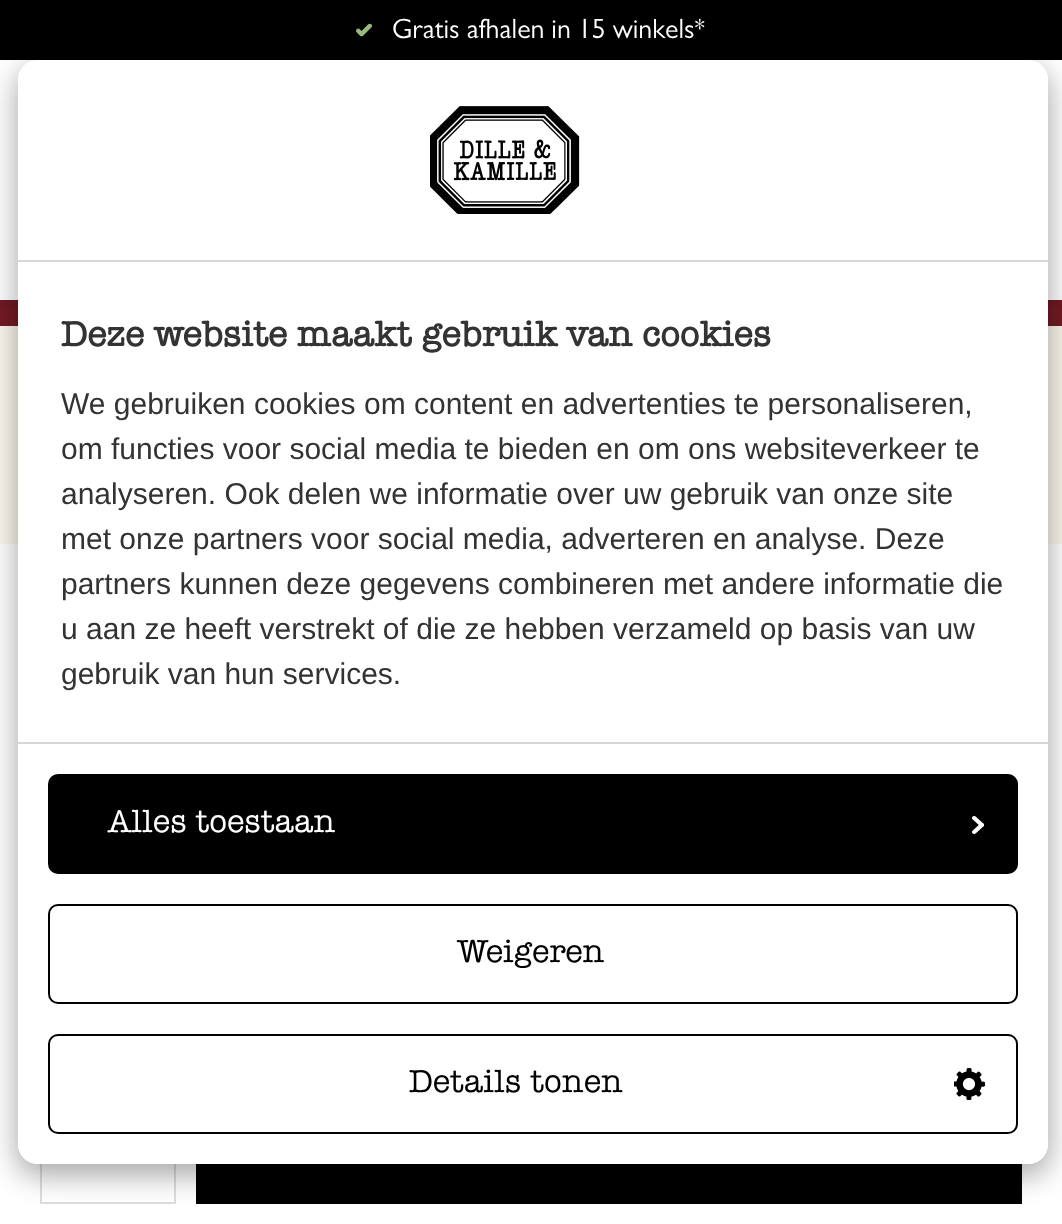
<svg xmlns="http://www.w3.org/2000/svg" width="1062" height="1224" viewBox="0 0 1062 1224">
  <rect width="100%" height="100%" fill="rgb(250,248,237)"/>
  <rect x="0" y="300" width="1062" height="26" fill="rgb(116,27,37)"/>
  <rect x="0" y="0" width="1062" height="300" fill="rgba(0,0,0,0.1)" filter="blur(5px)"/>
  <rect x="0" y="60" width="1062" height="240" fill="rgb(255,255,255)"/>
  <rect x="0" y="0" width="1062" height="60" fill="rgb(0,0,0)"/>
  <image x="356" y="23" width="16" height="14" href="pic1.png"/>
  <text x="392" y="38" font-family="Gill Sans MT" font-size="28" font-weight="300" fill="rgb(255,255,255)">Gratis afhalen in 15 winkels*</text>
  <rect x="0" y="544" width="1062" height="680" fill="rgb(255,255,255)"/>
  <rect x="41" y="1105" width="134" height="98" fill="none" stroke="rgb(221,221,221)" stroke-width="2"/>
  <rect x="196" y="1164" width="826" height="40" fill="rgb(0,0,0)"/>
  <rect x="18" y="70" width="1030" height="1104" rx="20" fill="rgba(0,0,0,0.19)" filter="blur(15px)"/>
  <rect x="18" y="70" width="1030" height="1104" rx="20" fill="rgba(0,0,0,0.2)" filter="blur(15px)"/>
  <rect x="18" y="60" width="1030" height="1104" rx="20" fill="rgb(255,255,255)"/>
  <path d="M38 60H1028C1039 60 1048 69 1048 80V262H18V80C18 69 27 60 38 60Z" fill="rgb(255,255,255)"/>
  <rect x="18" y="260" width="1030" height="2" fill="rgb(214,214,214)"/>
  <image x="430" y="106" width="150" height="108" href="pic2.png"/>
  <text x="61" y="346" font-family="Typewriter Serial" font-size="33" font-weight="bold" fill="rgb(51,51,51)">Deze website maakt gebruik van cookies</text>
  <g font-family="Liberation Sans" font-size="30" fill="rgb(51,51,51)">
    <text>
      <tspan x="61" y="414">We gebruiken cookies om content en advertenties te personaliseren,</tspan>
      <tspan x="61" y="459">om functies voor social media te bieden en om ons websiteverkeer te</tspan>
      <tspan x="61" y="504">analyseren. Ook delen we informatie over uw gebruik van onze site</tspan>
      <tspan x="61" y="549">met onze partners voor social media, adverteren en analyse. Deze</tspan>
      <tspan x="61" y="594">partners kunnen deze gegevens combineren met andere informatie die</tspan>
      <tspan x="61" y="639">u aan ze heeft verstrekt of die ze hebben verzameld op basis van uw</tspan>
      <tspan x="61" y="684">gebruik van hun services.</tspan>
    </text>
  </g>
  <path d="M18 742H1048V1144C1048 1155 1039 1164 1028 1164H38C27 1164 18 1155 18 1144Z" fill="rgb(255,255,255)"/>
  <rect x="18" y="742" width="1030" height="2" fill="rgb(214,214,214)"/>
  <rect x="49" y="775" width="968" height="98" rx="9" fill="rgb(0,0,0)" stroke="rgb(0,0,0)" stroke-width="2"/>
  <text x="108" y="832" font-family="Typewriter Serial" font-size="30" fill="rgb(255,255,255)">Alles toestaan</text>
  <image x="972" y="816" width="12" height="18" href="pic3.png"/>
  <rect x="49" y="905" width="968" height="98" rx="9" fill="none" stroke="rgb(0,0,0)" stroke-width="2"/>
  <text x="457" y="962" font-family="Typewriter Serial" font-size="30" fill="rgb(0,0,0)">Weigeren</text>
  <rect x="49" y="1035" width="968" height="98" rx="9" fill="none" stroke="rgb(0,0,0)" stroke-width="2"/>
  <text x="409" y="1092" font-family="Typewriter Serial" font-size="30" fill="rgb(0,0,0)">Details tonen</text>
  <image x="954" y="1068" width="31" height="32" href="pic4.png"/>
</svg>
